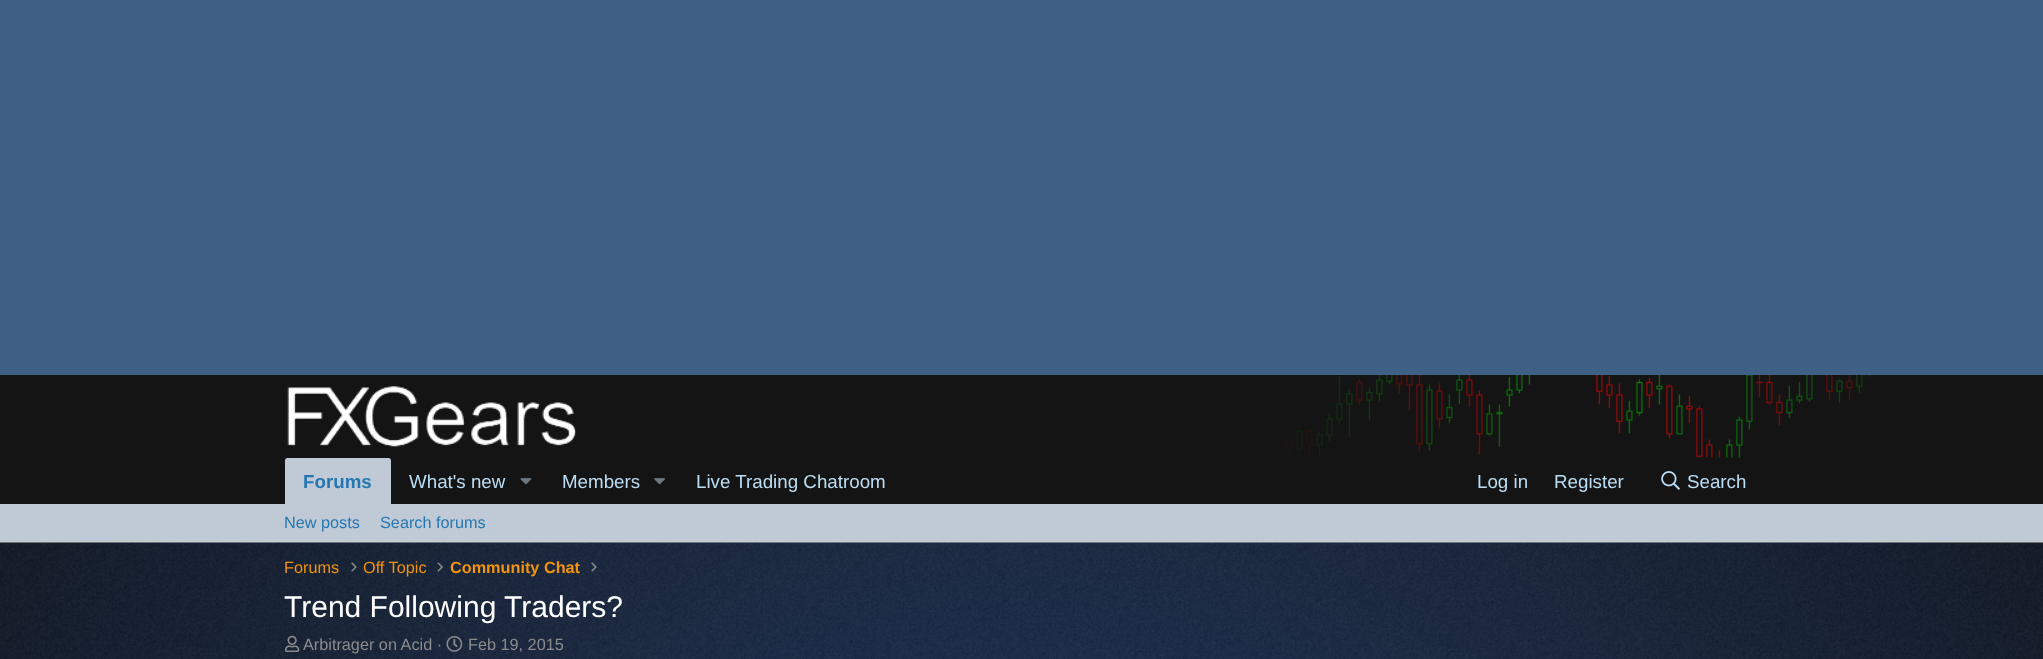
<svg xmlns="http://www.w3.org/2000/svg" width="2043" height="659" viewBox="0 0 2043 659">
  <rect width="100%" height="100%" fill="rgb(62,96,133)"/>
  <rect x="0" y="375" width="2043" height="129" fill="rgb(20,20,20)"/>
  <image x="1286" y="375" width="584" height="83" href="pic1.png"/>
  <image x="287" y="386" width="290" height="61" href="pic2.png"/>
  <path d="M287.5 458H388.5C390 458 391 459 391 460.5V504H285V460.5C285 459 286 458 287.5 458Z" fill="rgb(191,202,214)"/>
  <text x="303" y="488" font-family="Liberation Sans" font-size="18.75" font-weight="bold" fill="rgb(37,119,177)">Forums</text>
  <text x="409" y="488" font-family="Liberation Sans" font-size="18.75" fill="rgb(188,222,245)">What's new</text>
  <image x="520" y="478" width="12" height="7" href="pic3.png"/>
  <text x="562" y="488" font-family="Liberation Sans" font-size="18.75" fill="rgb(188,222,245)">Members</text>
  <image x="654" y="478" width="11" height="7" href="pic4.png"/>
  <g font-family="Liberation Sans" font-size="18.75" fill="rgb(188,222,245)">
    <text x="696" y="488">Live Trading Chatroom</text>
    <text x="1477" y="488">Log in</text>
    <text x="1554" y="488">Register</text>
  </g>
  <image x="1661" y="471" width="19" height="19" href="pic5.png"/>
  <text x="1687" y="488" font-family="Liberation Sans" font-size="18.75" fill="rgb(188,222,245)">Search</text>
  <rect x="0" y="504" width="2043" height="39" fill="rgb(191,202,214)"/>
  <rect x="0" y="541" width="2043" height="1" fill="rgb(203,203,203)"/>
  <g font-family="Liberation Sans" font-size="16.25" fill="rgb(37,119,177)">
    <text x="284" y="528">New posts</text>
    <text x="380" y="528">Search forums</text>
  </g>
  <image x="0" y="542" width="2043" height="117" href="pic6.png"/>
  <text x="284" y="573" font-family="Liberation Sans" font-size="16.25" fill="rgb(242,147,13)">Forums</text>
  <image x="351" y="562" width="6" height="10" href="pic7.png"/>
  <text x="363" y="573" font-family="Liberation Sans" font-size="16.25" fill="rgb(242,147,13)">Off Topic</text>
  <image x="437" y="562" width="6" height="10" href="pic8.png"/>
  <text x="450" y="573" font-family="Liberation Sans" font-size="16.25" font-weight="bold" fill="rgb(242,147,13)">Community Chat</text>
  <image x="591" y="562" width="6" height="10" href="pic9.png"/>
  <text x="284" y="617" font-family="Liberation Sans" font-size="30" fill="rgb(255,255,255)">Trend Following Traders?</text>
  <image x="285" y="635" width="15" height="17" href="pic10.png"/>
  <text x="303" y="650" font-family="Liberation Sans" font-size="16.25" fill="rgb(140,140,140)">Arbitrager on Acid ·</text>
  <image x="446" y="636" width="17" height="16" href="pic11.png"/>
  <text x="468" y="650" font-family="Liberation Sans" font-size="16.25" fill="rgb(140,140,140)">Feb 19, 2015</text>
</svg>
